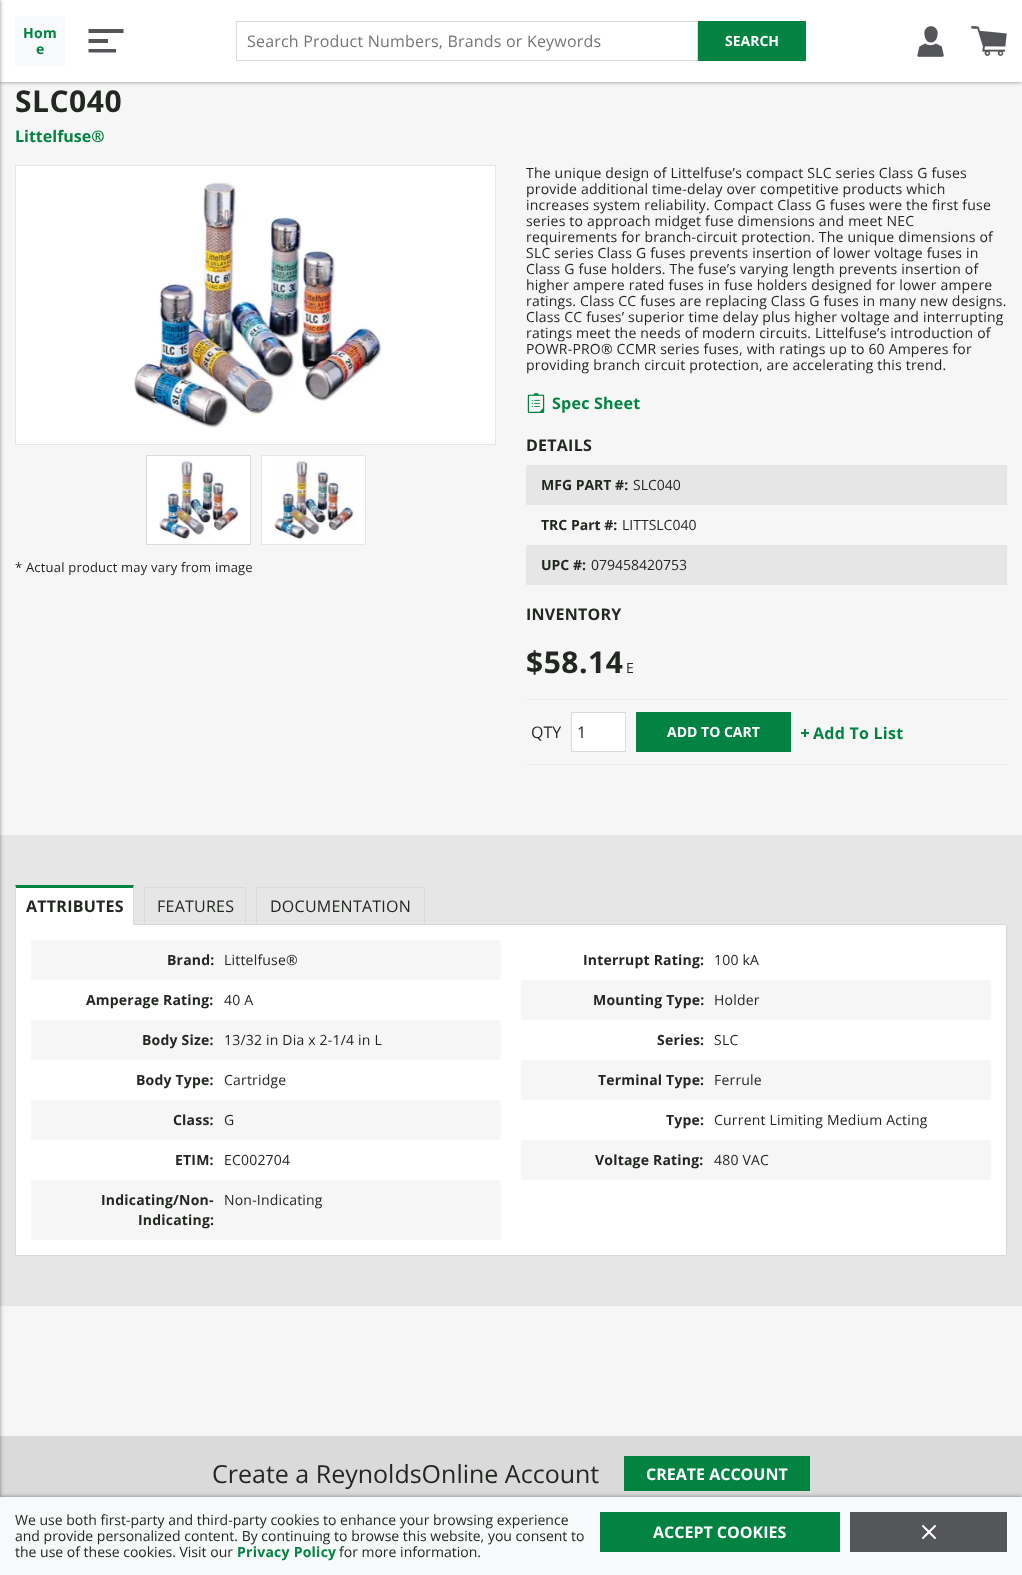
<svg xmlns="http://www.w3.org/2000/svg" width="1022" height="1575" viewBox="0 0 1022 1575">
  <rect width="100%" height="100%" fill="rgb(246,246,246)"/>
  <rect x="0" y="0" width="1022" height="82" fill="rgba(33,33,33,0.5)" filter="blur(2px)"/>
  <rect x="0" y="0" width="1022" height="82" fill="rgb(255,255,255)"/>
  <rect x="0" y="835" width="1022" height="471" fill="rgb(230,230,230)"/>
  <rect x="0" y="1436" width="1022" height="61" fill="rgb(218,218,218)"/>
  <rect x="-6" y="0" width="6" height="1575" fill="rgba(33,33,33,0.5)" filter="blur(2px)"/>
  <rect x="15" y="16" width="50" height="50" fill="rgb(248,249,250)"/>
  <g font-family="Open Sans" font-size="14" font-weight="bold" letter-spacing="0.25" fill="rgb(2,131,66)">
    <text x="23" y="38">Hom</text>
    <text x="36" y="54">e</text>
  </g>
  <path d="M116 49V52.5H88.5V49ZM108 39V43H88.5V39ZM123.5 29V33H88.5V29Z" fill="rgb(85,86,90)" fill-rule="evenodd"/>
  <rect x="236.5" y="21.5" width="461" height="39" fill="none" stroke="rgb(218,218,218)"/>
  <text x="247" y="47" font-family="Open Sans" font-size="16" letter-spacing="0.2" fill="rgb(117,117,117)">Search Product Numbers, Brands or Keywords</text>
  <rect x="698" y="21" width="108" height="40" fill="rgb(2,131,66)"/>
  <text x="725" y="46" font-family="Open Sans" font-size="14" font-weight="bold" fill="rgb(255,255,255)">SEARCH</text>
  <image x="917" y="26" width="27" height="31" href="pic1.png"/>
  <image x="971" y="26" width="36" height="30" href="pic2.png"/>
  <text x="15" y="112" font-family="Open Sans" font-size="30" font-weight="bold" letter-spacing="0.5" fill="rgb(34,39,33)">SLC040</text>
  <text x="15" y="142" font-family="Open Sans" font-size="16" font-weight="bold" fill="rgb(2,131,66)">Littelfuse®</text>
  <rect x="15.5" y="165.5" width="480" height="279" fill="rgb(255,255,255)" stroke="rgb(230,230,230)"/>
  <image x="133" y="182" width="249" height="246" href="pic3.png"/>
  <rect x="146.5" y="455.5" width="104" height="89" fill="rgb(255,255,255)" stroke="rgb(218,218,218)"/>
  <image x="159" y="461" width="80" height="80" href="pic4.png"/>
  <rect x="261.5" y="455.5" width="104" height="89" fill="rgb(255,255,255)" stroke="rgb(230,230,230)"/>
  <image x="274" y="456" width="80" height="85" href="pic5.png"/>
  <text x="15" y="572" font-family="Open Sans" font-size="13" letter-spacing="0.2" fill="rgb(34,39,33)">* Actual product may vary from image</text>
  <g font-family="Open Sans" font-size="14" letter-spacing="0.2" fill="rgb(34,39,33)">
    <text>
      <tspan x="526" y="178">The unique design of Littelfuse’s compact SLC series Class G fuses</tspan>
      <tspan x="526" y="194">provide additional time-delay over competitive products which</tspan>
      <tspan x="526" y="210">increases system reliability. Compact Class G fuses were the first fuse</tspan>
      <tspan x="526" y="226">series to approach midget fuse dimensions and meet NEC</tspan>
      <tspan x="526" y="242">requirements for branch-circuit protection. The unique dimensions of</tspan>
      <tspan x="526" y="258">SLC series Class G fuses prevents insertion of lower voltage fuses in</tspan>
      <tspan x="526" y="274">Class G fuse holders. The fuse’s varying length prevents insertion of</tspan>
      <tspan x="526" y="290">higher ampere rated fuses in fuse holders designed for lower ampere</tspan>
      <tspan x="526" y="306">ratings. Class CC fuses are replacing Class G fuses in many new designs.</tspan>
      <tspan x="526" y="322">Class CC fuses’ superior time delay plus higher voltage and interrupting</tspan>
      <tspan x="526" y="338">ratings meet the needs of modern circuits. Littelfuse’s introduction of</tspan>
      <tspan x="526" y="354">POWR-PRO® CCMR series fuses, with ratings up to 60 Amperes for</tspan>
      <tspan x="526" y="370">providing branch circuit protection, are accelerating this trend.</tspan>
    </text>
  </g>
  <image x="527" y="393" width="18" height="20" href="pic6.png"/>
  <text x="552" y="409" font-family="Open Sans" font-size="16" font-weight="bold" letter-spacing="0.25" fill="rgb(2,131,66)">Spec Sheet</text>
  <text x="526" y="451" font-family="Open Sans" font-size="16" font-weight="bold" letter-spacing="0.25" fill="rgb(34,39,33)">DETAILS</text>
  <rect x="526" y="465" width="481" height="40" fill="rgb(230,230,230)"/>
  <text x="541" y="490" font-family="Open Sans" font-size="14" font-weight="bold" fill="rgb(34,39,33)">MFG PART #:</text>
  <text x="633" y="490" font-family="Open Sans" font-size="14" fill="rgb(34,39,33)">SLC040</text>
  <text x="541" y="530" font-family="Open Sans" font-size="14" font-weight="bold" fill="rgb(34,39,33)">TRC Part #:</text>
  <text x="622" y="530" font-family="Open Sans" font-size="14" fill="rgb(34,39,33)">LITTSLC040</text>
  <rect x="526" y="545" width="481" height="40" fill="rgb(230,230,230)"/>
  <text x="541" y="570" font-family="Open Sans" font-size="14" font-weight="bold" fill="rgb(34,39,33)">UPC #:</text>
  <text x="591" y="570" font-family="Open Sans" font-size="14" fill="rgb(34,39,33)">079458420753</text>
  <text x="526" y="620" font-family="Open Sans" font-size="16" font-weight="bold" letter-spacing="0.25" fill="rgb(34,39,33)">INVENTORY</text>
  <text x="526" y="673" font-family="Open Sans" font-size="30" font-weight="bold" letter-spacing="0.5" fill="rgb(34,39,33)">$58.14</text>
  <text x="626" y="673" font-family="Open Sans" font-size="14" fill="rgb(34,39,33)">E</text>
  <rect x="526" y="699" width="481" height="1" fill="rgb(235,235,235)"/>
  <rect x="526" y="764" width="481" height="1" fill="rgb(235,235,235)"/>
  <text x="531" y="738" font-family="Open Sans" font-size="16" fill="rgb(34,39,33)">QTY</text>
  <rect x="571.5" y="712.5" width="54" height="39" fill="rgb(255,255,255)" stroke="rgb(218,218,218)"/>
  <text x="577" y="738" font-family="Open Sans" font-size="16" letter-spacing="0.2" fill="rgb(34,39,33)">1</text>
  <rect x="636" y="712" width="155" height="40" fill="rgb(2,131,66)"/>
  <text x="667" y="737" font-family="Open Sans" font-size="14" font-weight="bold" fill="rgb(255,255,255)">ADD TO CART</text>
  <image x="801" y="729" width="8" height="8" href="pic7.png"/>
  <text x="813" y="739" font-family="Open Sans" font-size="16" font-weight="bold" letter-spacing="0.25" fill="rgb(2,131,66)">Add To List</text>
  <rect x="15.5" y="924.5" width="991" height="331" fill="rgb(255,255,255)" stroke="rgb(218,218,218)"/>
  <rect x="15" y="885" width="119" height="40" fill="rgb(255,255,255)"/>
  <path d="M15 885H134L133 888H16Z" fill="rgb(2,131,66)"/>
  <path d="M134 885V925L133 924V888Z" fill="rgb(218,218,218)"/>
  <path d="M15 925V885L16 888V924Z" fill="rgb(218,218,218)"/>
  <text x="26" y="912" font-family="Open Sans" font-size="16" font-weight="bold" letter-spacing="0.25" fill="rgb(34,39,33)">ATTRIBUTES</text>
  <rect x="144.5" y="887.5" width="101" height="37" fill="none" stroke="rgb(218,218,218)"/>
  <text x="157" y="912" font-family="Open Sans" font-size="16" letter-spacing="0.25" fill="rgb(34,39,33)">FEATURES</text>
  <rect x="256.5" y="887.5" width="168" height="37" fill="none" stroke="rgb(218,218,218)"/>
  <text x="270" y="912" font-family="Open Sans" font-size="16" letter-spacing="0.25" fill="rgb(34,39,33)">DOCUMENTATION</text>
  <rect x="31" y="940" width="470" height="40" fill="rgb(246,246,246)"/>
  <text x="167" y="965" font-family="Open Sans" font-size="14" font-weight="bold" letter-spacing="0.2" fill="rgb(34,39,33)">Brand:</text>
  <text x="224" y="965" font-family="Open Sans" font-size="14" letter-spacing="0.2" fill="rgb(34,39,33)">Littelfuse®</text>
  <text x="583" y="965" font-family="Open Sans" font-size="14" font-weight="bold" letter-spacing="0.2" fill="rgb(34,39,33)">Interrupt Rating:</text>
  <text x="714" y="965" font-family="Open Sans" font-size="14" letter-spacing="0.2" fill="rgb(34,39,33)">100 kA</text>
  <text x="86" y="1005" font-family="Open Sans" font-size="14" font-weight="bold" letter-spacing="0.2" fill="rgb(34,39,33)">Amperage Rating:</text>
  <text x="224" y="1005" font-family="Open Sans" font-size="14" letter-spacing="0.2" fill="rgb(34,39,33)">40 A</text>
  <rect x="521" y="980" width="470" height="40" fill="rgb(246,246,246)"/>
  <text x="593" y="1005" font-family="Open Sans" font-size="14" font-weight="bold" letter-spacing="0.2" fill="rgb(34,39,33)">Mounting Type:</text>
  <text x="714" y="1005" font-family="Open Sans" font-size="14" letter-spacing="0.2" fill="rgb(34,39,33)">Holder</text>
  <rect x="31" y="1020" width="470" height="40" fill="rgb(246,246,246)"/>
  <text x="142" y="1045" font-family="Open Sans" font-size="14" font-weight="bold" letter-spacing="0.2" fill="rgb(34,39,33)">Body Size:</text>
  <text x="224" y="1045" font-family="Open Sans" font-size="14" letter-spacing="0.2" fill="rgb(34,39,33)">13/32 in Dia x 2-1/4 in L</text>
  <text x="657" y="1045" font-family="Open Sans" font-size="14" font-weight="bold" letter-spacing="0.2" fill="rgb(34,39,33)">Series:</text>
  <text x="714" y="1045" font-family="Open Sans" font-size="14" letter-spacing="0.2" fill="rgb(34,39,33)">SLC</text>
  <text x="136" y="1085" font-family="Open Sans" font-size="14" font-weight="bold" letter-spacing="0.2" fill="rgb(34,39,33)">Body Type:</text>
  <text x="224" y="1085" font-family="Open Sans" font-size="14" letter-spacing="0.2" fill="rgb(34,39,33)">Cartridge</text>
  <rect x="521" y="1060" width="470" height="40" fill="rgb(246,246,246)"/>
  <text x="598" y="1085" font-family="Open Sans" font-size="14" font-weight="bold" letter-spacing="0.2" fill="rgb(34,39,33)">Terminal Type:</text>
  <text x="714" y="1085" font-family="Open Sans" font-size="14" letter-spacing="0.2" fill="rgb(34,39,33)">Ferrule</text>
  <rect x="31" y="1100" width="470" height="40" fill="rgb(246,246,246)"/>
  <text x="173" y="1125" font-family="Open Sans" font-size="14" font-weight="bold" letter-spacing="0.2" fill="rgb(34,39,33)">Class:</text>
  <text x="224" y="1125" font-family="Open Sans" font-size="14" letter-spacing="0.2" fill="rgb(34,39,33)">G</text>
  <text x="666" y="1125" font-family="Open Sans" font-size="14" font-weight="bold" letter-spacing="0.2" fill="rgb(34,39,33)">Type:</text>
  <text x="714" y="1125" font-family="Open Sans" font-size="14" letter-spacing="0.2" fill="rgb(34,39,33)">Current Limiting Medium Acting</text>
  <text x="175" y="1165" font-family="Open Sans" font-size="14" font-weight="bold" letter-spacing="0.2" fill="rgb(34,39,33)">ETIM:</text>
  <text x="224" y="1165" font-family="Open Sans" font-size="14" letter-spacing="0.2" fill="rgb(34,39,33)">EC002704</text>
  <rect x="521" y="1140" width="470" height="40" fill="rgb(246,246,246)"/>
  <text x="595" y="1165" font-family="Open Sans" font-size="14" font-weight="bold" letter-spacing="0.2" fill="rgb(34,39,33)">Voltage Rating:</text>
  <text x="714" y="1165" font-family="Open Sans" font-size="14" letter-spacing="0.2" fill="rgb(34,39,33)">480 VAC</text>
  <rect x="31" y="1180" width="470" height="60" fill="rgb(246,246,246)"/>
  <g font-family="Open Sans" font-size="14" font-weight="bold" letter-spacing="0.2" fill="rgb(34,39,33)">
    <text x="101" y="1205">Indicating/Non-</text>
    <text x="138" y="1225">Indicating:</text>
  </g>
  <text x="224" y="1205" font-family="Open Sans" font-size="14" letter-spacing="0.2" fill="rgb(34,39,33)">Non-Indicating</text>
  <text x="212" y="1483" font-family="Open Sans" font-size="25" fill="rgb(34,39,33)">Create a ReynoldsOnline Account</text>
  <rect x="624" y="1456" width="186" height="35" fill="rgb(2,131,66)"/>
  <text x="646" y="1480" font-family="Open Sans" font-size="16" font-weight="bold" fill="rgb(255,255,255)">CREATE ACCOUNT</text>
  <rect x="0" y="1497" width="1022" height="78" fill="rgba(33,33,33,0.5)" filter="blur(2px)"/>
  <rect x="0" y="1497" width="1022" height="78" fill="rgb(248,249,250)"/>
  <g font-family="Open Sans" font-size="14" fill="rgb(34,39,33)">
    <text>
      <tspan x="15" y="1525">We use both first-party and third-party cookies to enhance your browsing experience</tspan>
      <tspan x="15" y="1541">and provide personalized content. By continuing to browse this website, you consent to</tspan>
      <tspan x="15" y="1557">the use of these cookies. Visit our</tspan>
    </text>
  </g>
  <text x="237" y="1557" font-family="Open Sans" font-size="14" font-weight="bold" letter-spacing="0.25" fill="rgb(2,131,66)">Privacy Policy</text>
  <text x="339" y="1557" font-family="Open Sans" font-size="14" fill="rgb(34,39,33)">for more information.</text>
  <rect x="600" y="1512" width="240" height="40" fill="rgb(2,131,66)"/>
  <text x="653" y="1538" font-family="Open Sans" font-size="16" font-weight="bold" fill="rgb(255,255,255)">ACCEPT COOKIES</text>
  <rect x="850" y="1512" width="157" height="40" fill="rgb(85,86,90)"/>
  <path d="M935 1526L923 1538M923 1526L935 1538" fill="none" stroke="rgb(255,255,255)" stroke-width="2" stroke-linecap="round" stroke-linejoin="round"/>
</svg>
